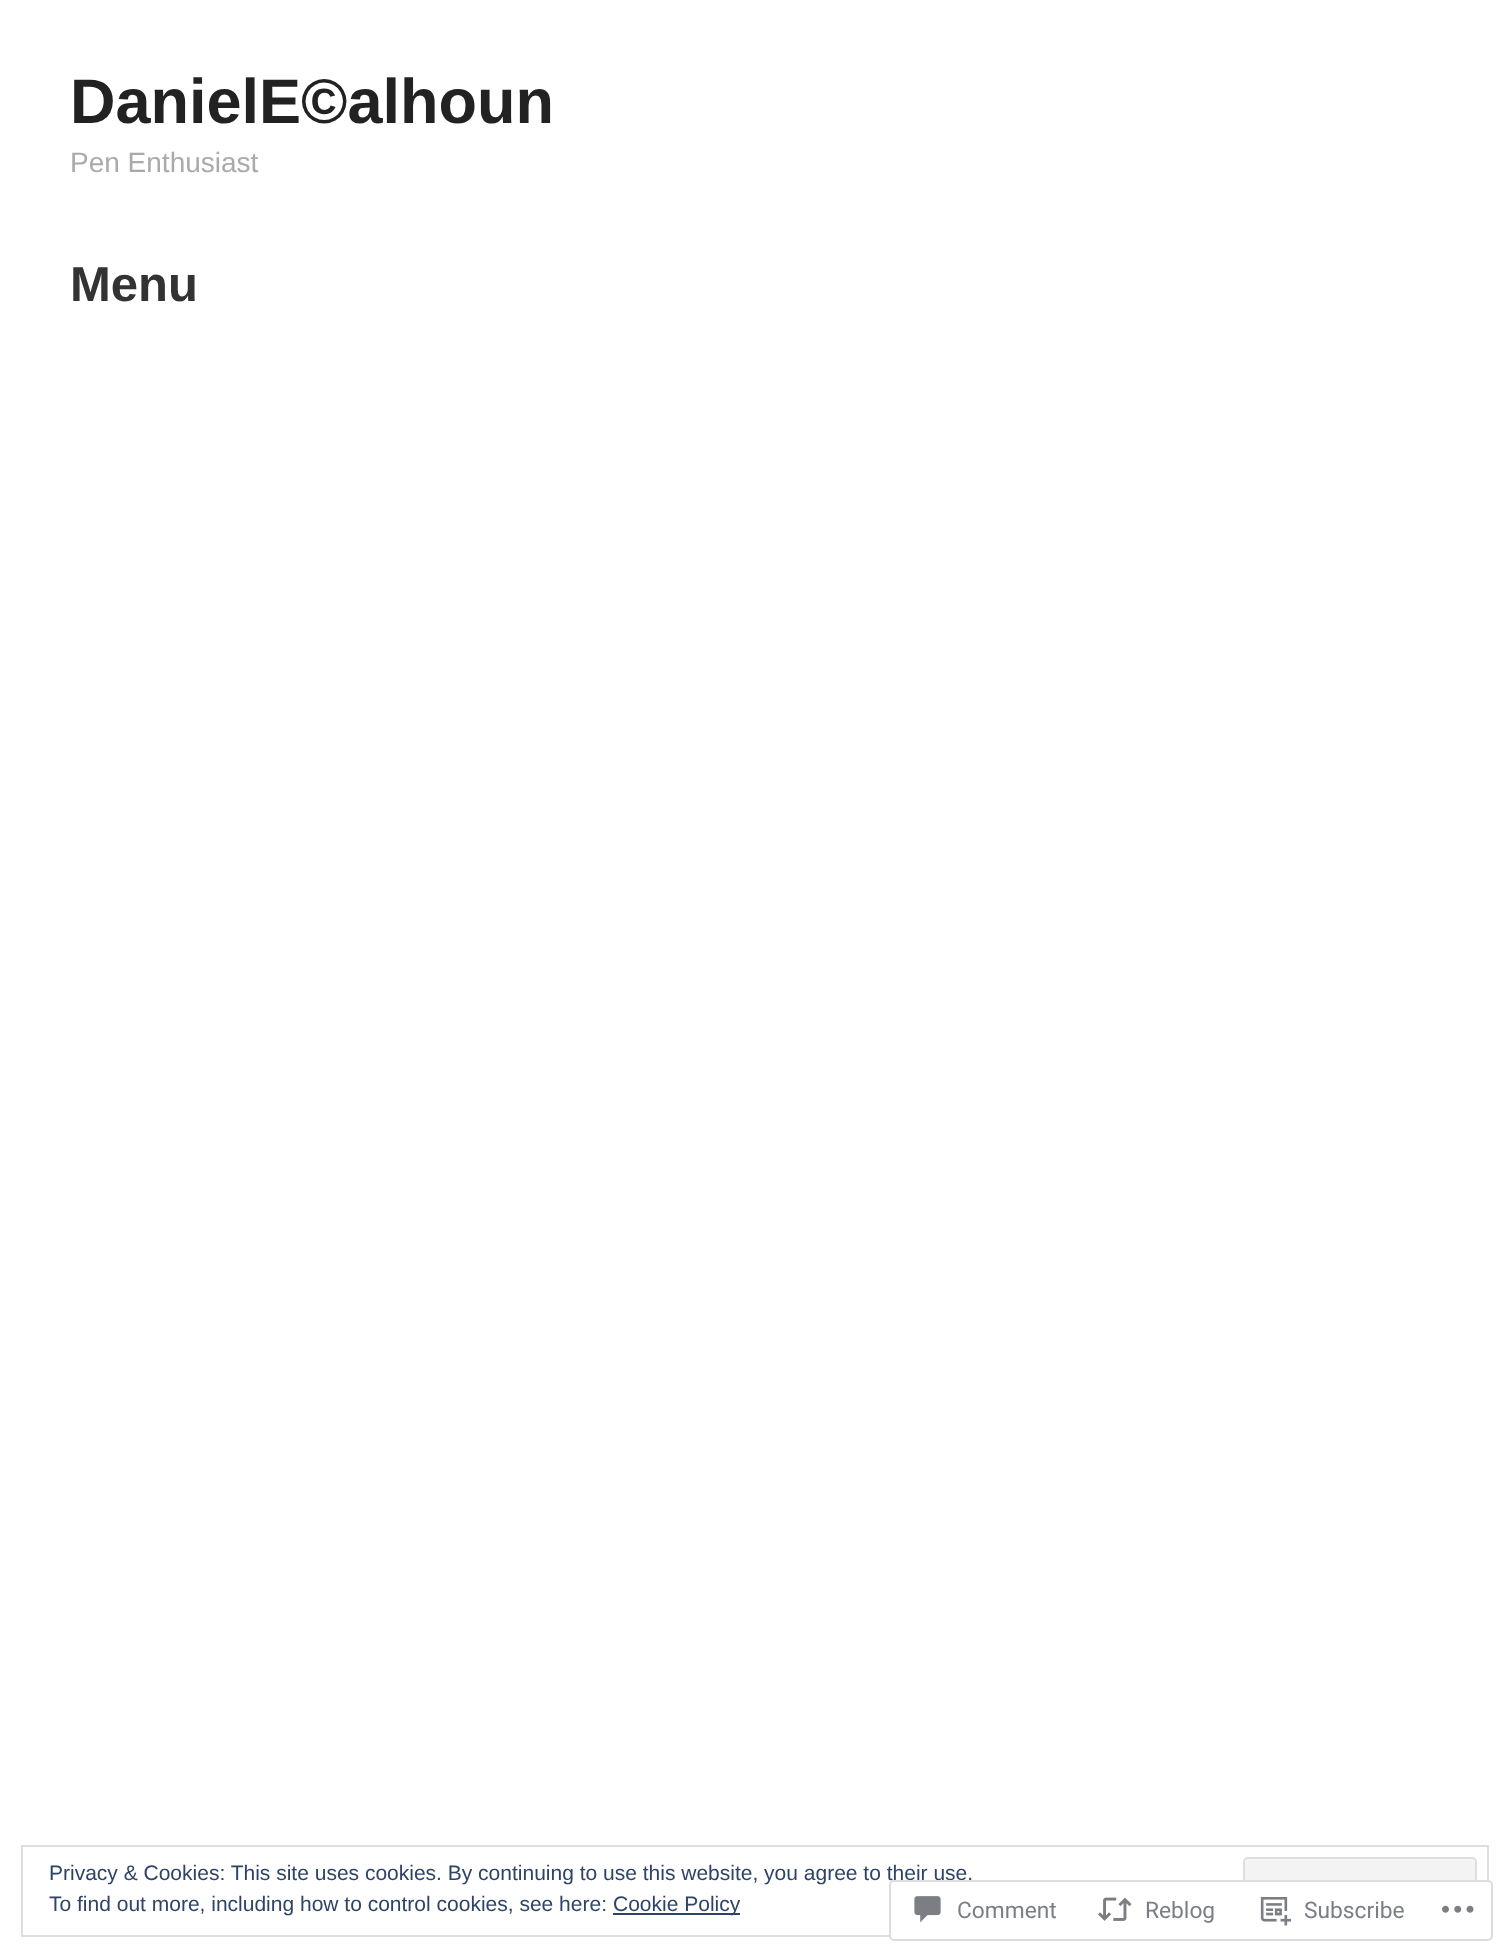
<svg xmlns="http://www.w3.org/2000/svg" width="1509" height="1958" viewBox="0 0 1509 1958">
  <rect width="100%" height="100%" fill="rgb(255,255,255)"/>
  <text x="70" y="123" font-family="Liberation Sans" font-size="63" font-weight="bold" fill="rgb(34,34,34)">DanielE©alhoun</text>
  <text x="70" y="172" font-family="Liberation Sans" font-size="28" fill="rgb(170,170,170)">Pen Enthusiast</text>
  <text x="70" y="301" font-family="Liberation Sans" font-size="49" font-weight="bold" fill="rgb(51,51,51)">Menu</text>
  <rect x="22" y="1846" width="1466" height="90" fill="none" stroke="rgb(222,222,222)" stroke-width="2"/>
  <text x="49" y="1880" font-family="Liberation Sans" font-size="21" fill="rgb(46,68,103)">Privacy &amp; Cookies: This site uses cookies. By continuing to use this website, you agree to their use.</text>
  <rect x="1243" y="1857" width="234" height="68" rx="5" fill="rgb(243,243,243)"/>
  <path d="M1248 1860H1472C1474 1860 1475 1862 1475 1864C1475 1861 1474 1859 1471 1859H1248C1245 1859 1244 1861 1244 1864C1244 1862 1246 1860 1248 1860Z" fill="rgb(249,249,249)"/>
  <rect x="1244" y="1858" width="232" height="66" rx="4" fill="none" stroke="rgb(222,222,222)" stroke-width="2"/>
  <text x="49" y="1911" font-family="Liberation Sans" font-size="21" fill="rgb(46,68,103)">To find out more, including how to control cookies, see here:</text>
  <rect x="613" y="1913" width="127" height="2" fill="rgb(46,68,103)"/>
  <text x="613" y="1911" font-family="Liberation Sans" font-size="21" fill="rgb(46,68,103)">Cookie Policy</text>
  <rect x="889" y="1880" width="604" height="61" rx="5" fill="rgba(255,255,255,0.98)"/>
  <rect x="890" y="1881" width="602" height="59" rx="4" fill="none" stroke="rgba(220,220,222,0.98)" stroke-width="2"/>
  <image x="914" y="1896" width="27" height="27" href="pic1.png"/>
  <text x="957" y="1918" font-family="Roboto" font-size="22.75" fill="rgb(123,127,133)">Comment</text>
  <image x="1098" y="1897" width="34" height="24" href="pic2.png"/>
  <text x="1145" y="1918" font-family="Roboto" font-size="22.75" fill="rgb(123,127,133)">Reblog</text>
  <image x="1260" y="1897" width="32" height="29" href="pic3.png"/>
  <text x="1304" y="1918" font-family="Roboto" font-size="22.75" fill="rgb(123,127,133)">Subscribe</text>
  <image x="1442" y="1905" width="32" height="8" href="pic4.png"/>
</svg>
